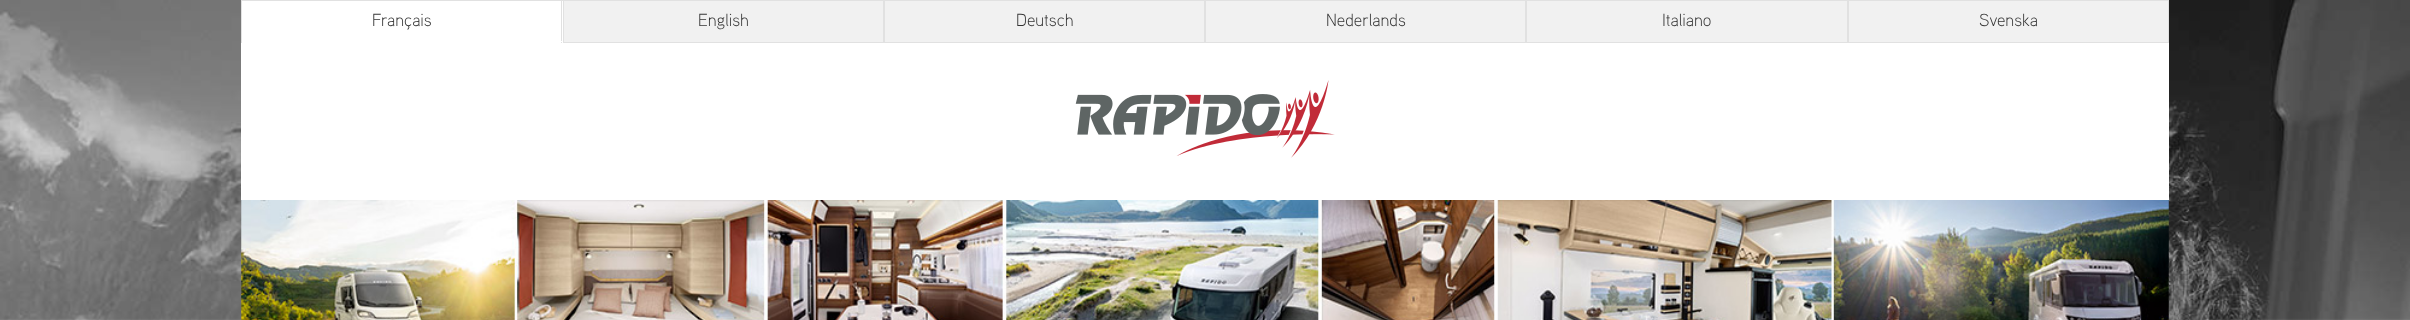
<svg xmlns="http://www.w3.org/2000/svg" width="2410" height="320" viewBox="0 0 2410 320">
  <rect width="100%" height="100%" fill="rgb(255,255,255)"/>
  <image x="0" y="0" width="2410" height="320" href="pic1.png"/>
  <rect x="564" y="1" width="1604" height="41" fill="rgb(241,241,241)"/>
  <rect x="242" y="1" width="321" height="42" fill="rgb(255,255,255)"/>
  <rect x="241" y="0" width="322" height="1" fill="rgb(225,225,225)"/>
  <rect x="561" y="0" width="1" height="43" fill="rgb(225,225,225)"/>
  <rect x="241" y="41" width="322" height="1" fill="rgb(255,255,255)"/>
  <rect x="241" y="0" width="1" height="43" fill="rgb(225,225,225)"/>
  <text x="372" y="26" font-family="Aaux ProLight" font-size="16.25" font-weight="300" fill="rgb(52,52,52)">Français</text>
  <rect x="563.5" y="0.5" width="320" height="42" fill="none" stroke="rgb(225,225,225)"/>
  <text x="698" y="26" font-family="Aaux ProLight" font-size="16.25" font-weight="300" fill="rgb(52,52,52)">English</text>
  <rect x="884.5" y="0.5" width="320" height="42" fill="none" stroke="rgb(225,225,225)"/>
  <text x="1016" y="26" font-family="Aaux ProLight" font-size="16.25" font-weight="300" fill="rgb(52,52,52)">Deutsch</text>
  <rect x="1205.5" y="0.5" width="320" height="42" fill="none" stroke="rgb(225,225,225)"/>
  <text x="1326" y="26" font-family="Aaux ProLight" font-size="16.25" font-weight="300" fill="rgb(52,52,52)">Nederlands</text>
  <rect x="1526.5" y="0.5" width="321" height="42" fill="none" stroke="rgb(225,225,225)"/>
  <text x="1662" y="26" font-family="Aaux ProLight" font-size="16.25" font-weight="300" fill="rgb(52,52,52)">Italiano</text>
  <rect x="1848.5" y="0.5" width="320" height="42" fill="none" stroke="rgb(225,225,225)"/>
  <text x="1979" y="26" font-family="Aaux ProLight" font-size="16.25" font-weight="300" fill="rgb(52,52,52)">Svenska</text>
  <rect x="241" y="43" width="1928" height="157" fill="rgb(255,255,255)"/>
  <image x="1075" y="80" width="260" height="78" href="pic2.png"/>
  <image x="241" y="200" width="1928" height="120" href="pic3.png"/>
</svg>
